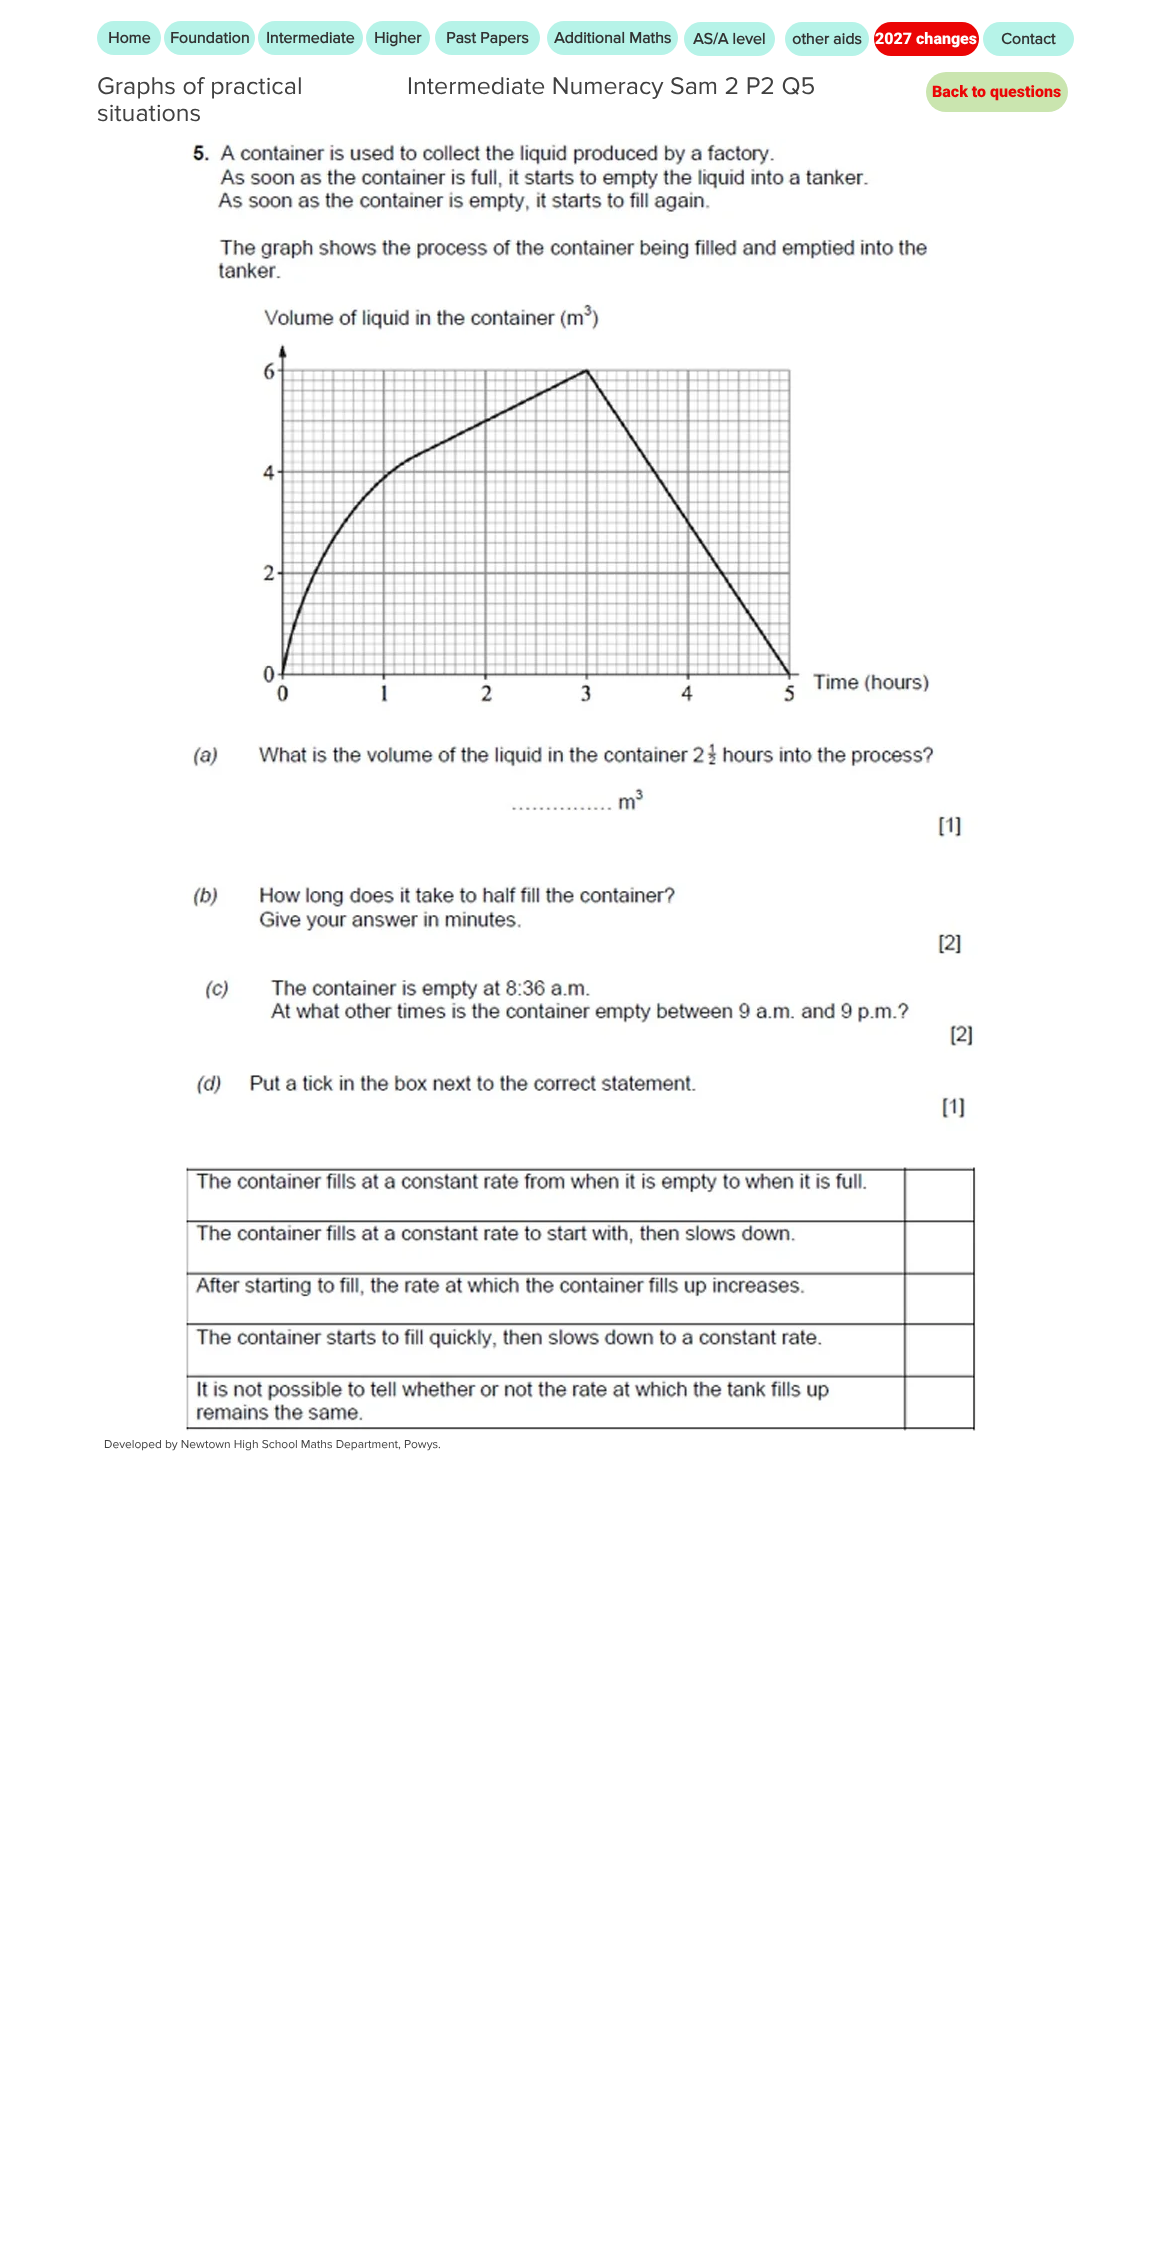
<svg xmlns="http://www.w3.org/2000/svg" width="1174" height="2245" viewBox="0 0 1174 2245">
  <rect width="100%" height="100%" fill="rgb(255,255,255)"/>
  <rect x="97" y="21" width="64" height="34" rx="17" fill="rgb(182,243,232)"/>
  <text x="108" y="43" font-family="'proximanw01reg'" font-size="16" font-weight="bold" fill="rgb(50,50,50)">Home</text>
  <rect x="164" y="21" width="91" height="34" rx="17" fill="rgb(182,243,232)"/>
  <text x="170" y="43" font-family="'proximanw01reg'" font-size="16" font-weight="bold" fill="rgb(50,50,50)">Foundation</text>
  <rect x="258" y="21" width="105" height="34" rx="17" fill="rgb(182,243,232)"/>
  <text x="266" y="43" font-family="'proximanw01reg'" font-size="16" font-weight="bold" fill="rgb(50,50,50)">Intermediate</text>
  <rect x="366" y="21" width="64" height="34" rx="17" fill="rgb(182,243,232)"/>
  <text x="374" y="43" font-family="'proximanw01reg'" font-size="16" font-weight="bold" fill="rgb(50,50,50)">Higher</text>
  <rect x="435" y="21" width="105" height="34" rx="17" fill="rgb(182,243,232)"/>
  <text x="446" y="43" font-family="'proximanw01reg'" font-size="16" font-weight="bold" fill="rgb(50,50,50)">Past Papers</text>
  <rect x="547" y="21" width="131" height="34" rx="17" fill="rgb(182,243,232)"/>
  <text x="554" y="43" font-family="'proximanw01reg'" font-size="16" font-weight="bold" fill="rgb(50,50,50)">Additional Maths</text>
  <rect x="684" y="22" width="91" height="34" rx="17" fill="rgb(182,243,232)"/>
  <text x="693" y="44" font-family="'proximanw01reg'" font-size="16" font-weight="bold" fill="rgb(50,50,50)">AS/A level</text>
  <rect x="785" y="22" width="84" height="34" rx="17" fill="rgb(182,243,232)"/>
  <text x="792" y="44" font-family="'proximanw01reg'" font-size="16" font-weight="bold" fill="rgb(50,50,50)">other aids</text>
  <rect x="874" y="22" width="105" height="34" rx="17" fill="rgb(235,5,5)"/>
  <text x="875" y="44" font-family="Roboto" font-size="16" font-weight="900" fill="rgb(255,255,255)">2027 changes</text>
  <rect x="983" y="22" width="91" height="34" rx="17" fill="rgb(182,243,232)"/>
  <text x="1001" y="44" font-family="'proximanw01reg'" font-size="16" font-weight="bold" fill="rgb(50,50,50)">Contact</text>
  <g font-family="'proximanw01reg'" font-size="25" fill="rgb(65,65,65)">
    <text>
      <tspan x="97" y="94">Graphs of practical</tspan>
      <tspan x="97" y="121">situations</tspan>
    </text>
    <text x="407" y="94">Intermediate Numeracy Sam 2 P2 Q5</text>
  </g>
  <rect x="926" y="72" width="142" height="40" rx="20" fill="rgb(202,229,175)"/>
  <text x="932" y="97" font-family="Roboto" font-size="16" font-weight="900" fill="rgb(235,5,5)">Back to questions</text>
  <image x="186" y="139" width="792" height="1292" href="pic1.png"/>
  <text x="104" y="1448" font-family="'proximanw01reg'" font-size="12" fill="rgb(65,65,65)">Developed by Newtown High School Maths Department, Powys.</text>
</svg>
